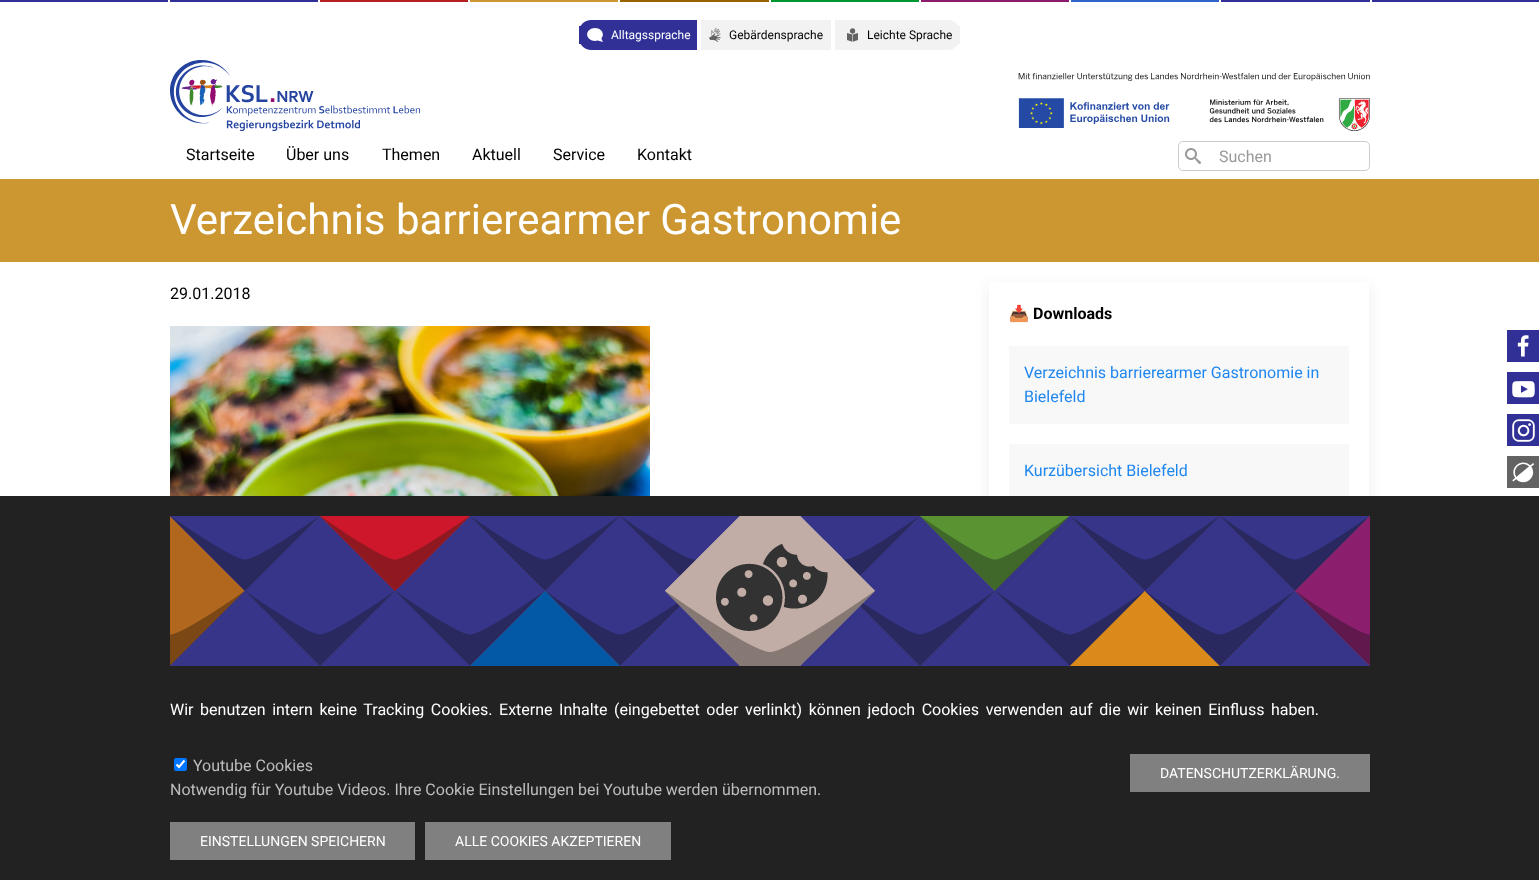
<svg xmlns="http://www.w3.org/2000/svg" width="1539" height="880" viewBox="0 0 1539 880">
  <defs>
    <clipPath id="clip1"><path d="M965 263H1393V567H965ZM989 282H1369V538H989Z" clip-rule="evenodd"/></clipPath>
  </defs>
  <rect width="100%" height="100%" fill="rgb(255,255,255)"/>
  <image x="1018" y="73" width="352" height="58" href="pic1.png"/>
  <rect x="0" y="0" width="168" height="2" fill="rgb(48,48,151)"/>
  <rect x="170" y="0" width="148" height="2" fill="rgb(48,48,151)"/>
  <rect x="320" y="0" width="148" height="2" fill="rgb(181,30,35)"/>
  <rect x="470" y="0" width="148" height="2" fill="rgb(204,151,48)"/>
  <rect x="620" y="0" width="149" height="2" fill="rgb(151,99,0)"/>
  <rect x="771" y="0" width="148" height="2" fill="rgb(0,151,48)"/>
  <rect x="921" y="0" width="148" height="2" fill="rgb(139,28,109)"/>
  <rect x="1071" y="0" width="148" height="2" fill="rgb(48,99,204)"/>
  <rect x="1221" y="0" width="149" height="2" fill="rgb(48,48,151)"/>
  <rect x="1372" y="0" width="167" height="2" fill="rgb(48,48,151)"/>
  <path d="M591 20H697V50H591C584.5 50 579 44.5 579 38V32C579 25.5 584.5 20 591 20Z" fill="rgb(48,48,151)"/>
  <rect x="579" y="26" width="2" height="18" fill="rgb(48,48,151)"/>
  <image x="587" y="28" width="16" height="14" href="pic2.png"/>
  <text x="611" y="39" font-family="Roboto" font-size="12" fill="rgb(255,255,255)">Alltagssprache</text>
  <rect x="701" y="20" width="130" height="30" fill="rgb(242,242,242)"/>
  <image x="709" y="28" width="12" height="14" href="pic3.png"/>
  <text x="729" y="39" font-family="Roboto" font-size="12" fill="rgb(0,0,0)">Gebärdensprache</text>
  <path d="M835 20H948C954.5 20 960 25.5 960 32V38C960 44.5 954.5 50 948 50H835Z" fill="rgb(242,242,242)"/>
  <rect x="958" y="26" width="2" height="18" fill="rgb(242,242,242)"/>
  <image x="847" y="28" width="11" height="14" href="pic4.png"/>
  <text x="867" y="39" font-family="Roboto" font-size="12" fill="rgb(0,0,0)">Leichte Sprache</text>
  <image x="170" y="60" width="250" height="71" href="pic5.png"/>
  <g font-family="Roboto" font-size="16" fill="rgb(0,0,0)">
    <text x="186" y="160">Startseite</text>
    <text x="286" y="160">Über uns</text>
    <text x="382" y="160">Themen</text>
    <text x="472" y="160">Aktuell</text>
    <text x="553" y="160">Service</text>
    <text x="637" y="160">Kontakt</text>
  </g>
  <rect x="1178.5" y="141.5" width="191" height="29" rx="4.5" fill="none" stroke="rgb(204,204,204)"/>
  <image x="1185" y="148" width="16" height="16" href="pic6.png"/>
  <text x="1219" y="162" font-family="Roboto" font-size="16" fill="rgb(153,153,153)">Suchen</text>
  <rect x="0" y="179" width="1539" height="83" fill="rgb(204,151,48)"/>
  <text x="170" y="234" font-family="Roboto" font-size="42" fill="rgb(255,255,255)">Verzeichnis barrierearmer Gastronomie</text>
  <text x="170" y="299" font-family="Roboto" font-size="16" fill="rgb(0,0,0)">29.01.2018</text>
  <image x="170" y="326" width="480" height="170" href="pic7.png"/>
  <g clip-path="url(#clip1)">
    <rect x="989" y="287" width="380" height="256" fill="rgba(0,0,0,0.08)" filter="blur(7.5px)"/>
  </g>
  <text x="1009" y="319" font-family="Noto Color Emoji" font-size="16" font-weight="bold" fill="rgb(0,0,0)">📥</text>
  <text x="1033" y="319" font-family="Roboto" font-size="16" font-weight="bold" fill="rgb(0,0,0)">Downloads</text>
  <rect x="1009" y="346" width="340" height="78" fill="rgb(248,248,248)"/>
  <g font-family="Roboto" font-size="16" fill="rgb(30,135,240)">
    <text>
      <tspan x="1024" y="378">Verzeichnis barrierearmer Gastronomie in</tspan>
      <tspan x="1024" y="402">Bielefeld</tspan>
    </text>
  </g>
  <rect x="1009" y="444" width="340" height="52" fill="rgb(248,248,248)"/>
  <text x="1024" y="476" font-family="Roboto" font-size="16" fill="rgb(30,135,240)">Kurzübersicht Bielefeld</text>
  <rect x="1507" y="330" width="32" height="32" fill="rgb(48,48,151)"/>
  <image x="1517" y="335" width="12" height="22" href="pic8.png"/>
  <rect x="1507" y="372" width="32" height="32" fill="rgb(48,48,151)"/>
  <image x="1512" y="381" width="23" height="17" href="pic9.png"/>
  <rect x="1507" y="414" width="32" height="32" fill="rgb(48,48,151)"/>
  <image x="1512" y="419" width="23" height="23" href="pic10.png"/>
  <image x="1507" y="456" width="32" height="32" href="pic11.png"/>
  <rect x="0" y="496" width="1539" height="384" fill="rgb(34,34,34)"/>
  <image x="170" y="516" width="1200" height="150" href="pic12.png"/>
  <text x="170" y="715" word-spacing="2.6" font-family="Roboto" font-size="16" fill="rgb(255,255,255)">Wir benutzen intern keine Tracking Cookies. Externe Inhalte (eingebettet oder verlinkt) können jedoch Cookies verwenden auf die wir keinen Einfluss haben.</text>
  <rect x="1130" y="754" width="240" height="38" fill="rgb(128,128,128)"/>
  <text x="1160" y="778" font-family="Roboto" font-size="14" fill="rgb(255,255,255)">DATENSCHUTZERKLÄRUNG.</text>
  <rect x="174" y="758" width="13" height="13" rx="2" fill="rgb(0,117,255)"/>
  <path d="M176.5 764.5L179 767L184.5 760.5" fill="none" stroke="rgb(255,255,255)" stroke-width="2.1"/>
  <g font-family="Roboto" font-size="16" fill="rgb(189,189,189)">
    <text x="193" y="771">Youtube Cookies</text>
    <text x="170" y="795">Notwendig für Youtube Videos. Ihre Cookie Einstellungen bei Youtube werden übernommen.</text>
  </g>
  <rect x="170" y="822" width="245" height="38" fill="rgb(128,128,128)"/>
  <text x="200" y="846" font-family="Roboto" font-size="14" fill="rgb(255,255,255)">EINSTELLUNGEN SPEICHERN</text>
  <rect x="425" y="822" width="246" height="38" fill="rgb(128,128,128)"/>
  <text x="455" y="846" font-family="Roboto" font-size="14" fill="rgb(255,255,255)">ALLE COOKIES AKZEPTIEREN</text>
</svg>
